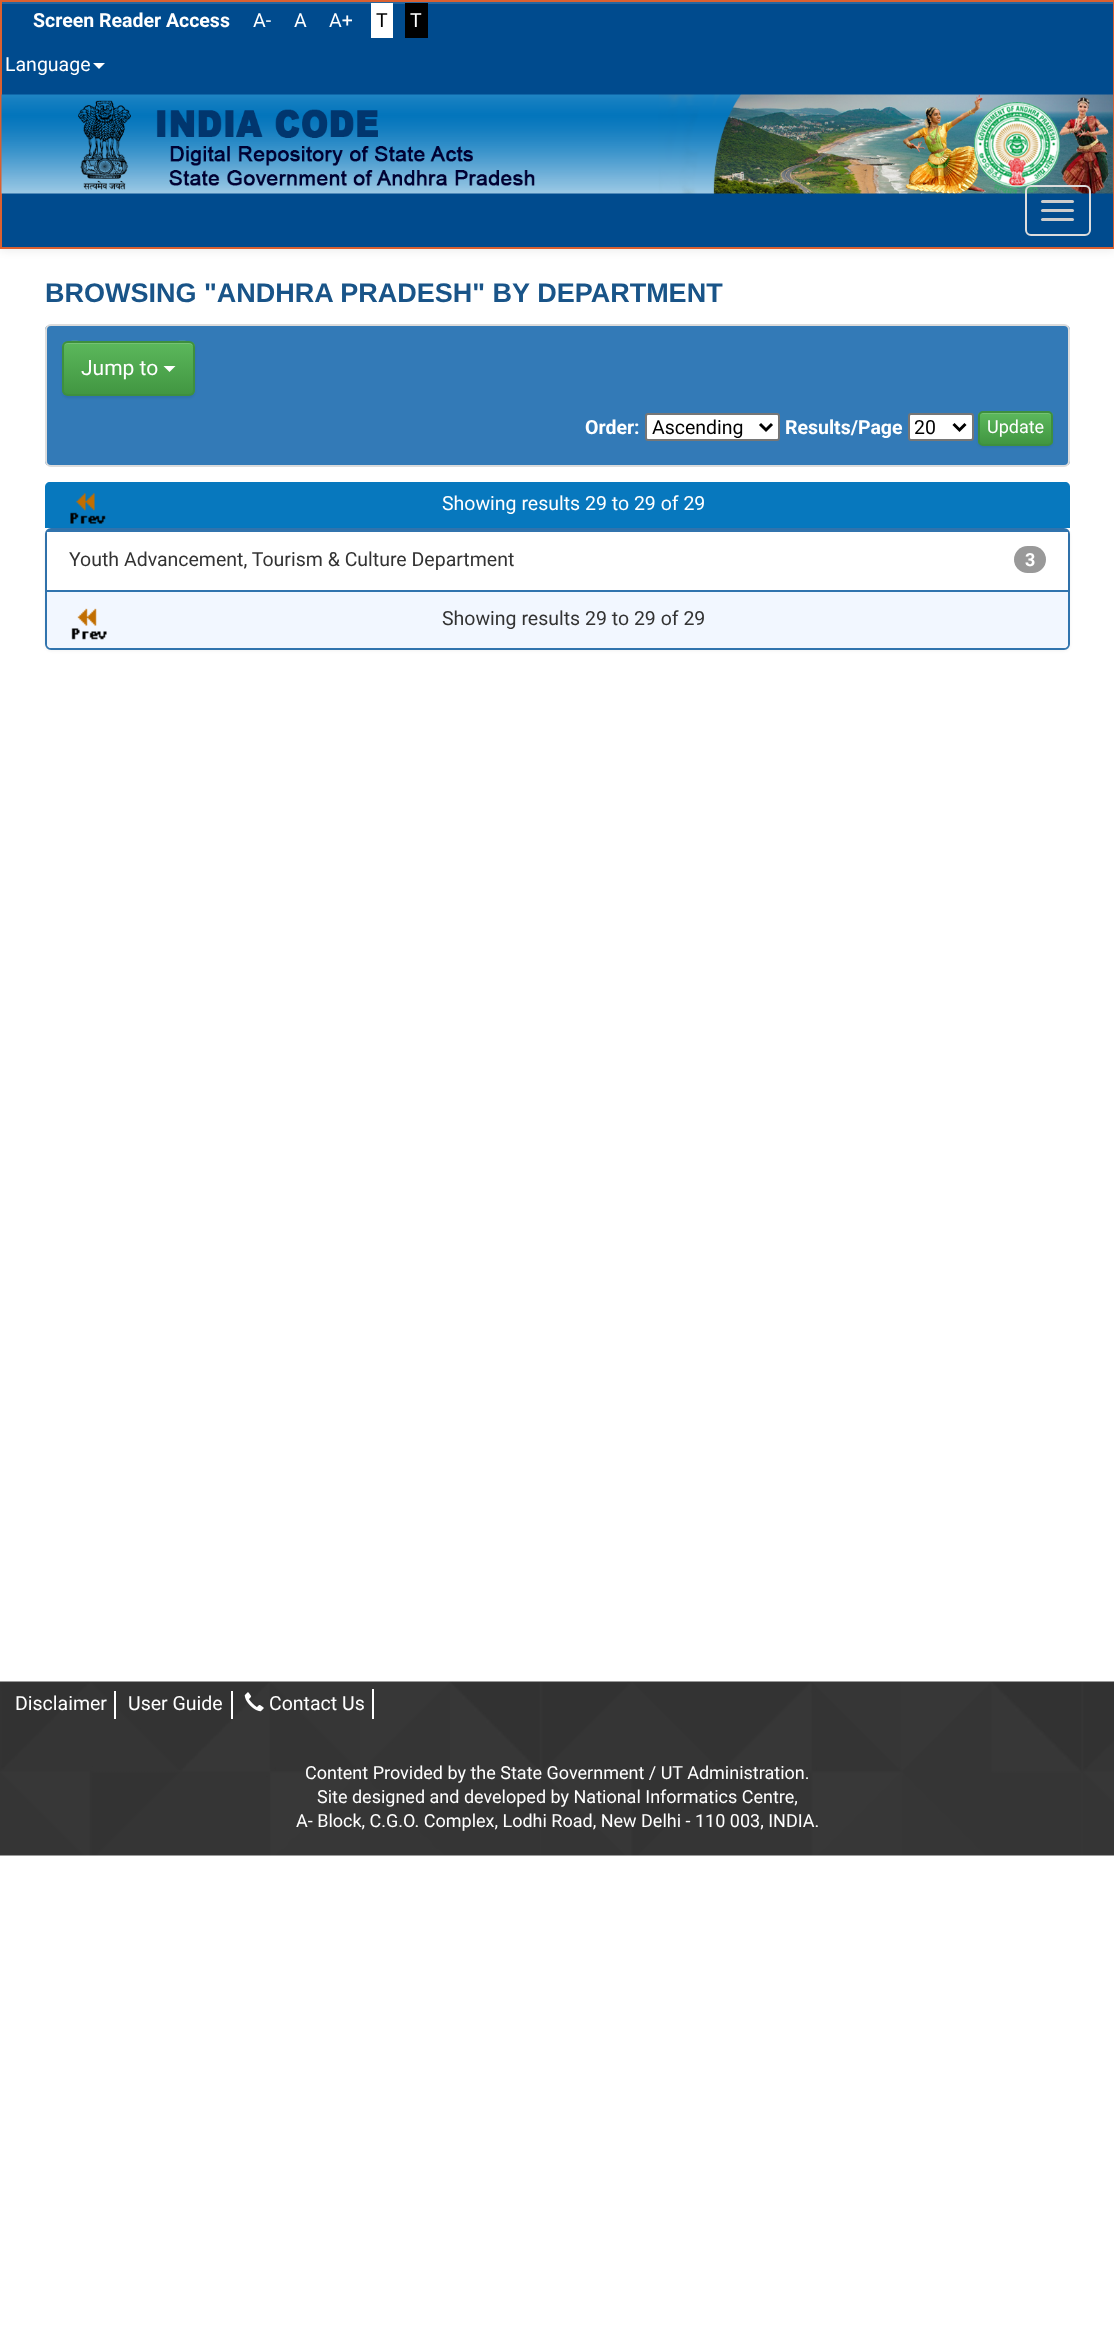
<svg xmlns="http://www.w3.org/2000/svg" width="1114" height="2336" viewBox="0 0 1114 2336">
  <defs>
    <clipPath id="clip1"><rect x="45" y="324" width="1025" height="143" rx="6"/></clipPath>
    <clipPath id="clip2"><rect x="62" y="341" width="133" height="55" rx="6"/></clipPath>
    <linearGradient id="g1" gradientUnits="userSpaceOnUse" x1="128" y1="342" x2="128" y2="395"><stop offset="0" stop-color="rgb(92,184,92)"/><stop offset="1" stop-color="rgb(65,150,65)"/></linearGradient>
    <clipPath id="clip3"><rect x="978" y="411" width="75" height="35" rx="5"/></clipPath>
    <linearGradient id="g2" gradientUnits="userSpaceOnUse" x1="1016" y1="413" x2="1016" y2="444"><stop offset="0" stop-color="rgb(92,184,92)"/><stop offset="1" stop-color="rgb(65,150,65)"/></linearGradient>
  </defs>
  <rect width="100%" height="100%" fill="rgb(255,255,255)"/>
  <rect x="0" y="2" width="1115" height="249" fill="rgba(0,0,0,0.07)" filter="blur(4px)"/>
  <rect x="2" y="4" width="1111" height="243" fill="rgb(0,75,142)"/>
  <rect x="2" y="2" width="1111" height="2" fill="rgb(38,102,159)"/>
  <rect x="1" y="1" width="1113" height="247" fill="none" stroke="rgb(219,96,48)" stroke-width="2"/>
  <text x="33" y="27" font-family="Roboto" font-size="19.5" font-weight="bold" fill="rgb(255,255,255)">Screen Reader Access</text>
  <g font-family="Roboto" font-size="19.5" fill="rgb(255,255,255)">
    <text x="253" y="27">A-</text>
    <text x="294" y="27">A</text>
    <text x="329" y="27">A+</text>
  </g>
  <rect x="371" y="3" width="22" height="35" fill="rgb(255,255,255)"/>
  <text x="376" y="27" font-family="Roboto" font-size="19.5" fill="rgb(0,0,0)">T</text>
  <rect x="405" y="3" width="23" height="35" fill="rgb(0,0,0)"/>
  <g font-family="Roboto" font-size="19.5" fill="rgb(255,255,255)">
    <text x="410" y="27">T</text>
    <text x="5" y="71">Language</text>
  </g>
  <path d="M93 63H105L99 69Z" fill="rgb(255,255,255)"/>
  <image x="1" y="94" width="1112" height="100" href="pic1.png"/>
  <rect x="1026" y="186" width="64" height="49" rx="5" fill="none" stroke="rgb(221,221,221)" stroke-width="2"/>
  <rect x="1041" y="200" width="33" height="3" rx="1.5" fill="rgb(204,204,204)"/>
  <rect x="1041" y="209" width="33" height="3" rx="1.5" fill="rgb(204,204,204)"/>
  <rect x="1041" y="218" width="33" height="3" rx="1.5" fill="rgb(204,204,204)"/>
  <text x="45" y="302" font-family="Liberation Sans" font-size="27" font-weight="bold" fill="rgb(25,84,136)">BROWSING "ANDHRA PRADESH" BY DEPARTMENT</text>
  <g clip-path="url(#clip1)">
    <rect x="45" y="326" width="1025" height="139" fill="rgb(51,122,183)"/>
  </g>
  <rect x="46" y="325" width="1023" height="141" rx="5" fill="none" stroke="rgb(220,220,220)" stroke-width="2"/>
  <rect x="62" y="342" width="133" height="56" rx="6" fill="rgba(0,0,0,0.07)" filter="blur(1px)"/>
  <g clip-path="url(#clip2)">
    <rect x="62" y="342" width="133" height="53" fill="url(#g1)"/>
  </g>
  <path d="M68 344H189C191 344 194 346 194 348C194 337 173 342 169 342H88C84 342 63 337 63 348C63 346 65 344 68 344Z" fill="rgb(116,194,116)"/>
  <rect x="63" y="342" width="131" height="53" rx="5" fill="none" stroke="rgb(62,143,62)" stroke-width="2"/>
  <text x="81" y="375" font-family="Roboto" font-size="21" fill="rgb(255,255,255)">Jump to</text>
  <path d="M163.5 366H175.5L169.5 372Z" fill="rgb(255,255,255)"/>
  <text x="585" y="434" font-family="Roboto" font-size="19.5" font-weight="bold" fill="rgb(255,255,255)">Order:</text>
  <rect x="646" y="414" width="133" height="26" rx="2" fill="rgb(255,255,255)" stroke="rgb(118,118,118)" stroke-width="2"/>
  <path d="M760 424L766 430L772 424" fill="none" stroke="rgb(0,0,0)" stroke-width="3"/>
  <text x="652" y="434" font-family="Roboto" font-size="19.5" fill="rgb(0,0,0)">Ascending</text>
  <text x="785" y="434" font-family="Roboto" font-size="19.5" font-weight="bold" fill="rgb(255,255,255)">Results/Page</text>
  <rect x="909" y="414" width="64" height="26" rx="2" fill="rgb(255,255,255)" stroke="rgb(118,118,118)" stroke-width="2"/>
  <path d="M953.5 424L959.5 430L965.5 424" fill="none" stroke="rgb(0,0,0)" stroke-width="3"/>
  <text x="914" y="434" font-family="Roboto" font-size="19.5" fill="rgb(0,0,0)">20</text>
  <rect x="978" y="413" width="75" height="34" rx="5" fill="rgba(0,0,0,0.07)" filter="blur(1px)"/>
  <g clip-path="url(#clip3)">
    <rect x="978" y="413" width="75" height="31" fill="url(#g2)"/>
  </g>
  <path d="M982 414H1048C1050 414 1052 415 1052 417C1052 410 1042 413 1038 413H994C990 413 980 410 980 417C980 415 981 414 982 414Z" fill="rgb(116,194,116)"/>
  <rect x="979" y="412" width="73" height="33" rx="4" fill="none" stroke="rgb(62,143,62)" stroke-width="2"/>
  <text x="987" y="433" font-family="Roboto" font-size="18" fill="rgb(255,255,255)">Update</text>
  <path d="M50 482H1065C1068 482 1070 484 1070 487V528H45V487C45 484 47 482 50 482Z" fill="rgb(7,120,190)"/>
  <image x="70" y="493" width="36" height="31" href="pic2.png"/>
  <text x="442" y="510" font-family="Roboto" font-size="19.5" fill="rgb(255,255,255)">Showing results 29 to 29 of 29</text>
  <rect x="45" y="530" width="1025" height="121" rx="6" fill="rgba(0,0,0,0.05)" filter="blur(1.5px)"/>
  <rect x="46" y="529" width="1023" height="120" rx="5" fill="rgb(255,255,255)" stroke="rgb(49,116,174)" stroke-width="2"/>
  <rect x="47" y="531" width="1021" height="60" fill="rgba(0,0,0,0.07)" filter="blur(1.5px)"/>
  <rect x="47" y="532" width="1021" height="58" fill="rgb(255,255,255)"/>
  <rect x="47" y="530" width="1021" height="2" fill="rgb(49,116,174)"/>
  <text x="69" y="566" font-family="Roboto" font-size="19.5" fill="rgb(51,51,51)">Youth Advancement, Tourism &amp; Culture Department</text>
  <rect x="1014" y="546" width="32" height="27" rx="13.5" fill="rgb(153,153,153)"/>
  <text x="1025" y="566" font-family="Roboto" font-size="18" font-weight="bold" fill="rgb(255,255,255)">3</text>
  <path d="M47 590H1068V643C1068 646 1066 648 1063 648H52C49 648 47 646 47 643Z" fill="rgb(242,247,255)"/>
  <rect x="47" y="590" width="1021" height="2" fill="rgb(49,116,174)"/>
  <image x="71" y="608" width="36" height="32" href="pic3.png"/>
  <text x="442" y="625" font-family="Roboto" font-size="19.5" fill="rgb(51,51,51)">Showing results 29 to 29 of 29</text>
  <image x="0" y="1681" width="1114" height="175" href="pic4.png"/>
  <rect x="114" y="1691" width="2" height="28" fill="rgb(255,255,255)"/>
  <text x="15" y="1710" font-family="Roboto" font-size="19.5" fill="rgb(255,255,255)">Disclaimer</text>
  <rect x="231" y="1691" width="2" height="28" fill="rgb(255,255,255)"/>
  <text x="128" y="1710" font-family="Roboto" font-size="19.5" fill="rgb(255,255,255)">User Guide</text>
  <rect x="372" y="1689" width="2" height="30" fill="rgb(255,255,255)"/>
  <image x="244" y="1692" width="20" height="20" href="pic5.png"/>
  <text x="269" y="1710" font-family="Roboto" font-size="19.5" fill="rgb(255,255,255)">Contact Us</text>
  <g font-family="Roboto" font-size="18" fill="rgb(255,255,255)">
    <text x="305" y="1779">Content Provided by the State Government / UT Administration.</text>
    <text x="317" y="1803">Site designed and developed by National Informatics Centre,</text>
    <text x="296" y="1827">A- Block, C.G.O. Complex, Lodhi Road, New Delhi - 110 003, INDIA.</text>
  </g>
</svg>
